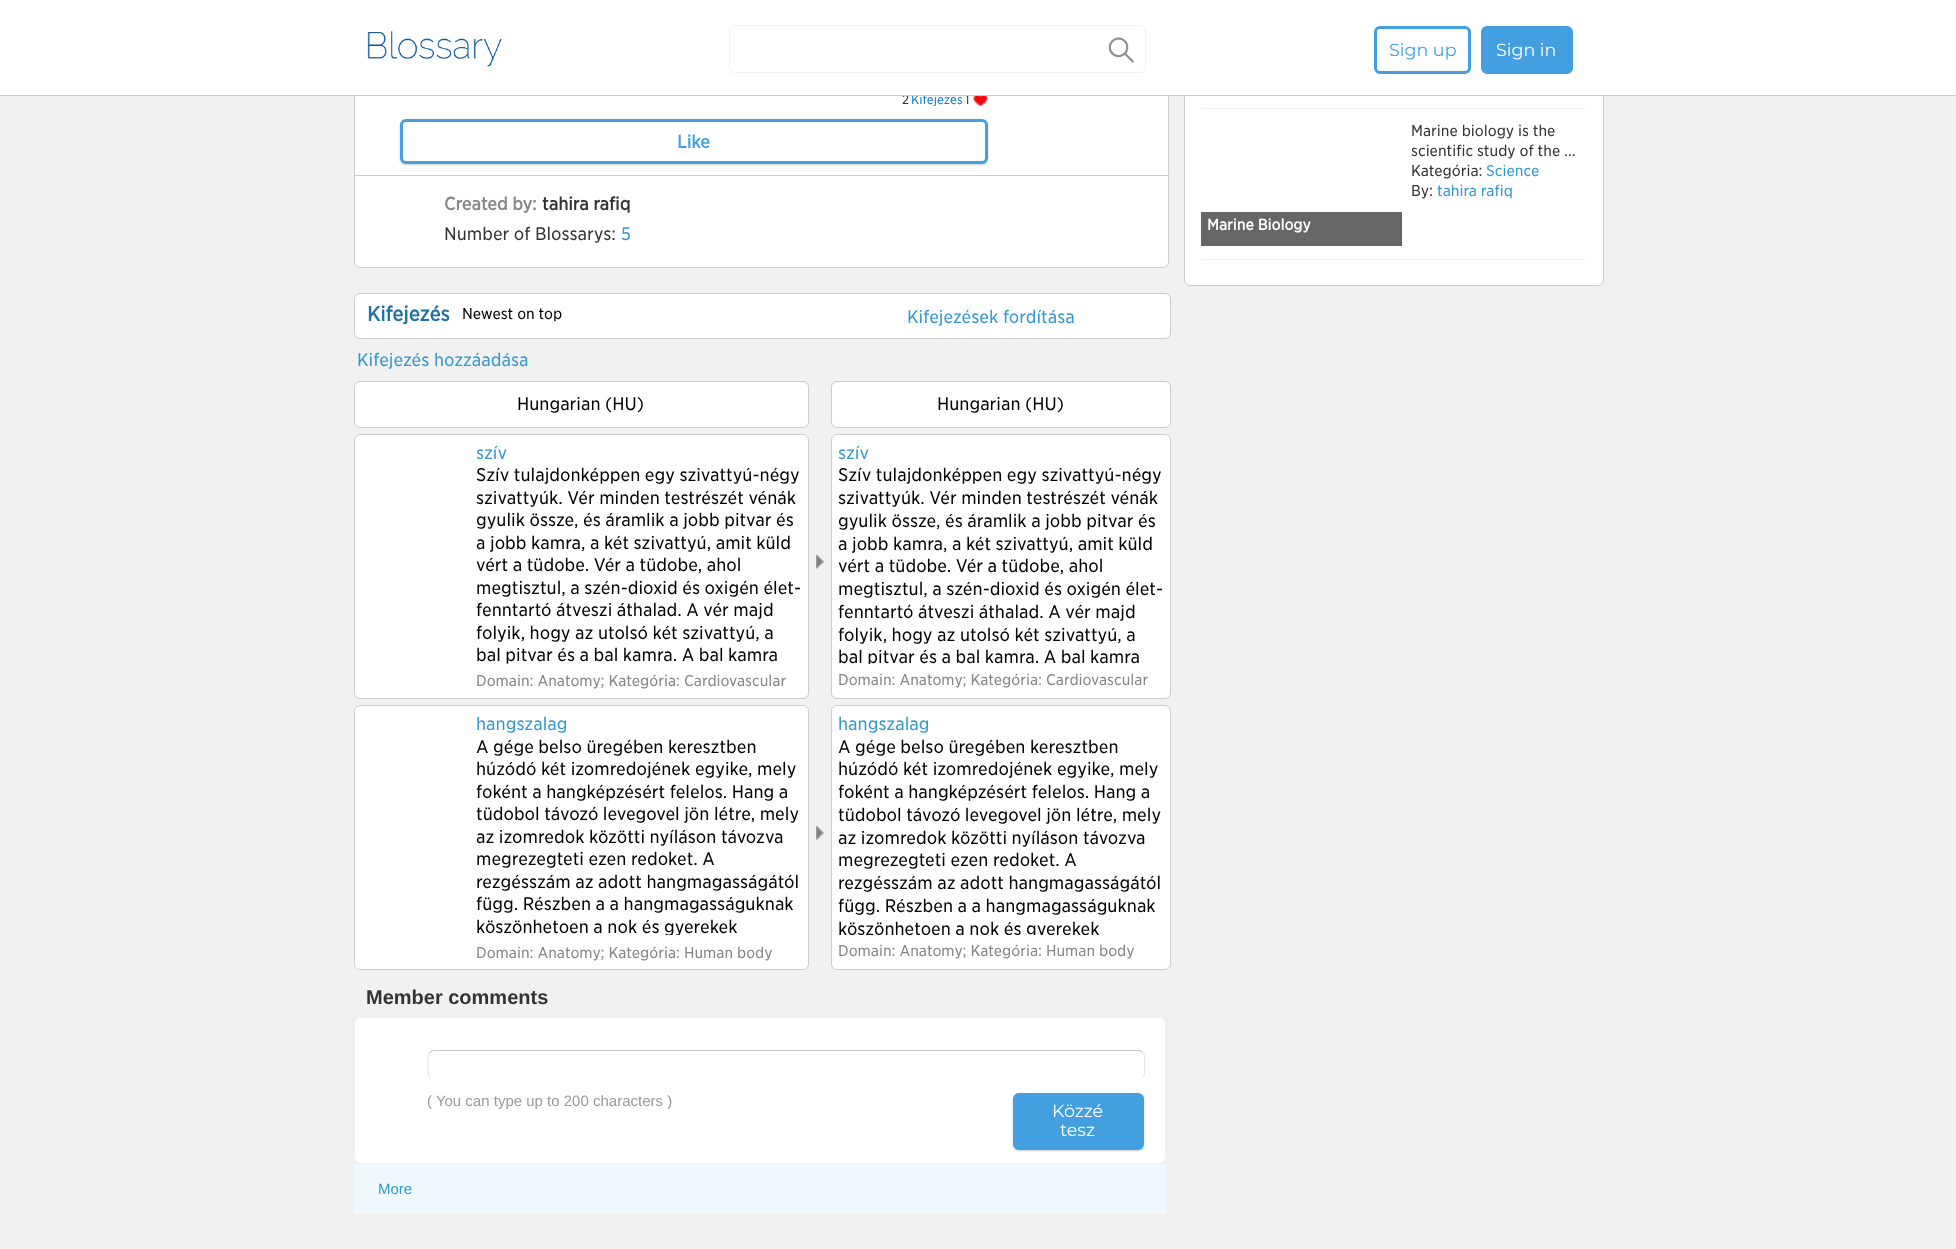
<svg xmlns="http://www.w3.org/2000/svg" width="1956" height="1249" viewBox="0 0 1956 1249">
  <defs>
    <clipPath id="clip1"><rect x="839" y="464" width="325" height="200"/></clipPath>
    <clipPath id="clip2"><rect x="476" y="735" width="325" height="200"/></clipPath>
    <clipPath id="clip3"><rect x="839" y="735" width="325" height="200"/></clipPath>
  </defs>
  <rect width="100%" height="100%" fill="rgb(241,241,241)"/>
  <rect x="355" y="96" width="813" height="79" fill="rgb(255,255,255)"/>
  <text x="902" y="104" font-family="'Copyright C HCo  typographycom'" font-size="12.5" font-weight="300" fill="rgb(51,51,51)">2</text>
  <text x="911" y="104" font-family="'Copyright C HCo  typographycom'" font-size="12.5" font-weight="300" fill="rgb(18,127,194)">Kifejezés</text>
  <text x="965" y="104" font-family="'Copyright C HCo  typographycom'" font-size="12.5" font-weight="300" fill="rgb(51,51,51)">1</text>
  <rect x="1184.5" y="-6.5" width="419" height="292" rx="5.5" fill="rgb(255,255,255)" stroke="rgb(205,205,205)"/>
  <rect x="0" y="0" width="1956" height="95" fill="rgb(255,255,255)"/>
  <rect x="0" y="95" width="1956" height="1" fill="rgb(205,205,205)"/>
  <image x="367" y="31" width="135" height="36" href="pic1.png"/>
  <rect x="729.5" y="25.5" width="416" height="47" rx="5.5" fill="none" stroke="rgb(241,241,241)"/>
  <image x="1108" y="37" width="26" height="26" href="pic2.png"/>
  <rect x="1375.5" y="27.5" width="94" height="45" rx="4.5" fill="none" stroke="rgb(67,159,224)" stroke-width="3"/>
  <text x="1389" y="56" font-family="Montserrat" font-size="17.5" fill="rgb(67,159,224)">Sign up</text>
  <rect x="1482.5" y="27.5" width="89" height="45" rx="4.5" fill="rgb(67,159,224)" stroke="rgb(67,159,224)" stroke-width="3"/>
  <text x="1496" y="56" font-family="Montserrat" font-size="17.5" fill="rgb(255,255,255)">Sign in</text>
  <rect x="1168" y="96" width="1" height="79" fill="rgb(205,205,205)"/>
  <rect x="354" y="96" width="1" height="79" fill="rgb(205,205,205)"/>
  <image x="973" y="96" width="15" height="10" href="pic3.png"/>
  <rect x="400" y="120" width="588" height="45" rx="6" fill="rgba(0,0,0,0.2)" filter="blur(1px)"/>
  <rect x="401.5" y="120.5" width="585" height="42" rx="4.5" fill="rgb(255,255,255)" stroke="rgb(67,159,224)" stroke-width="3"/>
  <text x="677" y="148" font-family="'Copyright C HCo  typographycom'" font-size="17.5" font-weight="bold" fill="rgb(67,159,224)">Like</text>
  <path d="M354.5 175.5H1168.5V262C1168.5 265 1166 267.5 1163 267.5H360C357 267.5 354.5 265 354.5 262Z" fill="rgb(255,255,255)" stroke="rgb(205,205,205)"/>
  <text x="444" y="210" font-family="'Copyright C HCo  typographycom'" font-size="17.5" font-weight="bold" fill="rgb(134,134,134)">Created by:</text>
  <text x="542" y="210" font-family="'Copyright C HCo  typographycom'" font-size="17.5" font-weight="bold" fill="rgb(51,51,51)">tahira rafiq</text>
  <text x="444" y="240" font-family="'Copyright C HCo  typographycom'" font-size="17.5" font-weight="300" fill="rgb(51,51,51)">Number of Blossarys:</text>
  <text x="621" y="240" font-family="'Copyright C HCo  typographycom'" font-size="17.5" font-weight="300" fill="rgb(51,153,204)">5</text>
  <rect x="354.5" y="293.5" width="816" height="45" rx="5.5" fill="rgb(255,255,255)" stroke="rgb(205,205,205)"/>
  <text x="367" y="321" font-family="'Copyright C HCo  typographycom'" font-size="20" font-weight="bold" fill="rgb(30,114,161)">Kifejezés</text>
  <text x="462" y="319" font-family="'Copyright C HCo  typographycom'" font-size="15" font-weight="300" fill="rgb(0,0,0)">Newest on top</text>
  <g font-family="'Copyright C HCo  typographycom'" font-size="17.5" font-weight="300" fill="rgb(51,153,204)">
    <text x="907" y="323">Kifejezések fordítása</text>
    <text x="357" y="366">Kifejezés hozzáadása</text>
  </g>
  <rect x="354.5" y="381.5" width="454" height="46" rx="5.5" fill="rgb(255,255,255)" stroke="rgb(205,205,205)"/>
  <text x="517" y="410" font-family="'Copyright C HCo  typographycom'" font-size="17.5" font-weight="300" fill="rgb(0,0,0)">Hungarian (HU)</text>
  <rect x="831.5" y="381.5" width="339" height="46" rx="5.5" fill="rgb(255,255,255)" stroke="rgb(205,205,205)"/>
  <text x="937" y="410" font-family="'Copyright C HCo  typographycom'" font-size="17.5" font-weight="300" fill="rgb(0,0,0)">Hungarian (HU)</text>
  <rect x="354.5" y="434.5" width="454" height="264" rx="5.5" fill="rgb(255,255,255)" stroke="rgb(205,205,205)"/>
  <text x="476" y="459" font-family="'Copyright C HCo  typographycom'" font-size="17.5" font-weight="300" fill="rgb(51,153,204)">szív</text>
  <g font-family="'Copyright C HCo  typographycom'" font-size="17.5" font-weight="300" fill="rgb(0,0,0)">
    <text>
      <tspan x="476" y="481">Szív tulajdonképpen egy szivattyú-négy</tspan>
      <tspan x="476" y="504">szivattyúk. Vér minden testrészét vénák</tspan>
      <tspan x="476" y="526">gyűlik össze, és áramlik a jobb pitvar és</tspan>
      <tspan x="476" y="549">a jobb kamra, a két szivattyú, amit küld</tspan>
      <tspan x="476" y="571">vért a tüdőbe. Vér a tüdőbe, ahol</tspan>
      <tspan x="476" y="594">megtisztul, a szén-dioxid és oxigén élet-</tspan>
      <tspan x="476" y="616">fenntartó átveszi áthalad. A vér majd</tspan>
      <tspan x="476" y="639">folyik, hogy az utolsó két szivattyú, a</tspan>
      <tspan x="476" y="661">bal pitvar és a bal kamra. A bal kamra</tspan>
    </text>
  </g>
  <text x="476" y="686" font-family="'Copyright C HCo  typographycom'" font-size="15" font-weight="300" fill="rgb(134,134,134)">Domain: Anatomy; Kategória: Cardiovascular</text>
  <image x="816" y="554" width="8" height="15" href="pic4.png"/>
  <rect x="831.5" y="434.5" width="339" height="264" rx="5.5" fill="rgb(255,255,255)" stroke="rgb(205,205,205)"/>
  <text x="838" y="459" font-family="'Copyright C HCo  typographycom'" font-size="17.5" font-weight="300" fill="rgb(51,153,204)">szív</text>
  <g font-family="'Copyright C HCo  typographycom'" font-size="17.5" font-weight="300" fill="rgb(0,0,0)">
    <text>
      <tspan x="838" y="481">Szív tulajdonképpen egy szivattyú-négy</tspan>
      <tspan x="838" y="504">szivattyúk. Vér minden testrészét vénák</tspan>
      <tspan x="838" y="527">gyűlik össze, és áramlik a jobb pitvar és</tspan>
      <tspan x="838" y="550">a jobb kamra, a két szivattyú, amit küld</tspan>
      <tspan x="838" y="572">vért a tüdőbe. Vér a tüdőbe, ahol</tspan>
      <tspan x="838" y="595">megtisztul, a szén-dioxid és oxigén élet-</tspan>
      <tspan x="838" y="618">fenntartó átveszi áthalad. A vér majd</tspan>
      <tspan x="838" y="641">folyik, hogy az utolsó két szivattyú, a</tspan>
    </text>
  </g>
  <g clip-path="url(#clip1)">
    <text x="838" y="663" font-family="'Copyright C HCo  typographycom'" font-size="17.5" font-weight="300" fill="rgb(0,0,0)">bal pitvar és a bal kamra. A bal kamra</text>
  </g>
  <text x="838" y="685" font-family="'Copyright C HCo  typographycom'" font-size="15" font-weight="300" fill="rgb(134,134,134)">Domain: Anatomy; Kategória: Cardiovascular</text>
  <rect x="354.5" y="705.5" width="454" height="264" rx="5.5" fill="rgb(255,255,255)" stroke="rgb(205,205,205)"/>
  <text x="476" y="730" font-family="'Copyright C HCo  typographycom'" font-size="17.5" font-weight="300" fill="rgb(51,153,204)">hangszalag</text>
  <g font-family="'Copyright C HCo  typographycom'" font-size="17.5" font-weight="300" fill="rgb(0,0,0)">
    <text>
      <tspan x="476" y="753">A gége belső üregében keresztben</tspan>
      <tspan x="476" y="775">húzódó két izomredőjének egyike, mely</tspan>
      <tspan x="476" y="798">főként a hangképzésért felelős. Hang a</tspan>
      <tspan x="476" y="820">tüdőből távozó levegővel jön létre, mely</tspan>
      <tspan x="476" y="843">az izomredők közötti nyíláson távozva</tspan>
      <tspan x="476" y="865">megrezegteti ezen redőket. A</tspan>
      <tspan x="476" y="888">rezgésszám az adott hangmagasságától</tspan>
      <tspan x="476" y="910">függ. Részben a a hangmagasságuknak</tspan>
    </text>
  </g>
  <g clip-path="url(#clip2)">
    <text x="476" y="933" font-family="'Copyright C HCo  typographycom'" font-size="17.5" font-weight="300" fill="rgb(0,0,0)">köszönhetően a nők és gyerekek</text>
  </g>
  <text x="476" y="958" font-family="'Copyright C HCo  typographycom'" font-size="15" font-weight="300" fill="rgb(134,134,134)">Domain: Anatomy; Kategória: Human body</text>
  <image x="816" y="826" width="8" height="14" href="pic5.png"/>
  <rect x="831.5" y="705.5" width="339" height="264" rx="5.5" fill="rgb(255,255,255)" stroke="rgb(205,205,205)"/>
  <text x="838" y="730" font-family="'Copyright C HCo  typographycom'" font-size="17.5" font-weight="300" fill="rgb(51,153,204)">hangszalag</text>
  <g font-family="'Copyright C HCo  typographycom'" font-size="17.5" font-weight="300" fill="rgb(0,0,0)">
    <text>
      <tspan x="838" y="753">A gége belső üregében keresztben</tspan>
      <tspan x="838" y="775">húzódó két izomredőjének egyike, mely</tspan>
      <tspan x="838" y="798">főként a hangképzésért felelős. Hang a</tspan>
      <tspan x="838" y="821">tüdőből távozó levegővel jön létre, mely</tspan>
      <tspan x="838" y="844">az izomredők közötti nyíláson távozva</tspan>
      <tspan x="838" y="866">megrezegteti ezen redőket. A</tspan>
      <tspan x="838" y="889">rezgésszám az adott hangmagasságától</tspan>
      <tspan x="838" y="912">függ. Részben a a hangmagasságuknak</tspan>
    </text>
  </g>
  <g clip-path="url(#clip3)">
    <text x="838" y="935" font-family="'Copyright C HCo  typographycom'" font-size="17.5" font-weight="300" fill="rgb(0,0,0)">köszönhetően a nők és gyerekek</text>
  </g>
  <text x="838" y="956" font-family="'Copyright C HCo  typographycom'" font-size="15" font-weight="300" fill="rgb(134,134,134)">Domain: Anatomy; Kategória: Human body</text>
  <text x="366" y="1004" font-family="Liberation Sans" font-size="20" font-weight="bold" fill="rgb(51,51,51)">Member comments</text>
  <rect x="355" y="1018" width="810" height="145" rx="6" fill="rgb(255,255,255)"/>
  <path d="M430 1052.5C431 1051 432.5 1050.5 434 1050.5H1139C1140 1050.5 1141.5 1051 1142.5 1052.5" fill="none" stroke="rgb(195,195,195)" stroke-width="1.2"/>
  <path d="M1142.5 1052.5C1144 1053.5 1144.5 1055 1144.5 1056V1074C1144.5 1075 1144 1076.5 1142.5 1077.5" fill="none" stroke="rgb(230,230,230)" stroke-width="1.2"/>
  <path d="M1142.5 1077.5C1141.5 1079 1140 1079.5 1139 1079.5H434C432.5 1079.5 431 1079 430 1077.5" fill="none" stroke="rgb(253,253,253)" stroke-width="1.2"/>
  <path d="M430 1077.5C428.5 1076.5 428 1075 428 1074V1056C428 1055 428.5 1053.5 430 1052.5" fill="none" stroke="rgb(230,230,230)" stroke-width="1.2"/>
  <text x="427" y="1106" font-family="Liberation Sans" font-size="15" fill="rgb(153,153,153)">( You can type up to 200 characters )</text>
  <rect x="1013" y="1094" width="131" height="57" rx="6" fill="rgba(0,0,0,0.2)" filter="blur(1px)"/>
  <rect x="1013" y="1093" width="131" height="57" rx="6" fill="rgb(67,159,224)"/>
  <g font-family="Montserrat" font-size="17.5" fill="rgb(255,255,255)">
    <text x="1052" y="1117">Közzé</text>
    <text x="1060" y="1136">tesz</text>
  </g>
  <rect x="354" y="1164" width="812" height="50" fill="rgb(240,249,253)"/>
  <text x="378" y="1194" font-family="Liberation Sans" font-size="15" fill="rgb(51,153,204)">More</text>
  <rect x="1201" y="108" width="385" height="1" fill="rgb(242,241,246)"/>
  <rect x="1201" y="259" width="385" height="1" fill="rgb(242,241,246)"/>
  <g font-family="'Copyright C HCo  typographycom'" font-size="15" font-weight="300" fill="rgb(51,51,51)">
    <text>
      <tspan x="1411" y="136">Marine biology is the</tspan>
      <tspan x="1411" y="156">scientific study of the ...</tspan>
      <tspan x="1411" y="176">Kategória:</tspan>
    </text>
  </g>
  <text x="1486" y="176" font-family="'Copyright C HCo  typographycom'" font-size="15" font-weight="300" fill="rgb(51,153,204)">Science</text>
  <text x="1411" y="196" font-family="'Copyright C HCo  typographycom'" font-size="15" font-weight="300" fill="rgb(51,51,51)">By:</text>
  <text x="1437" y="196" font-family="'Copyright C HCo  typographycom'" font-size="15" font-weight="300" fill="rgb(51,153,204)">tahira rafiq</text>
  <rect x="1201" y="212" width="201" height="34" fill="rgb(102,102,102)"/>
  <text x="1207" y="230" font-family="'Copyright C HCo  typographycom'" font-size="15" font-weight="bold" fill="rgb(255,255,255)">Marine Biology</text>
</svg>
